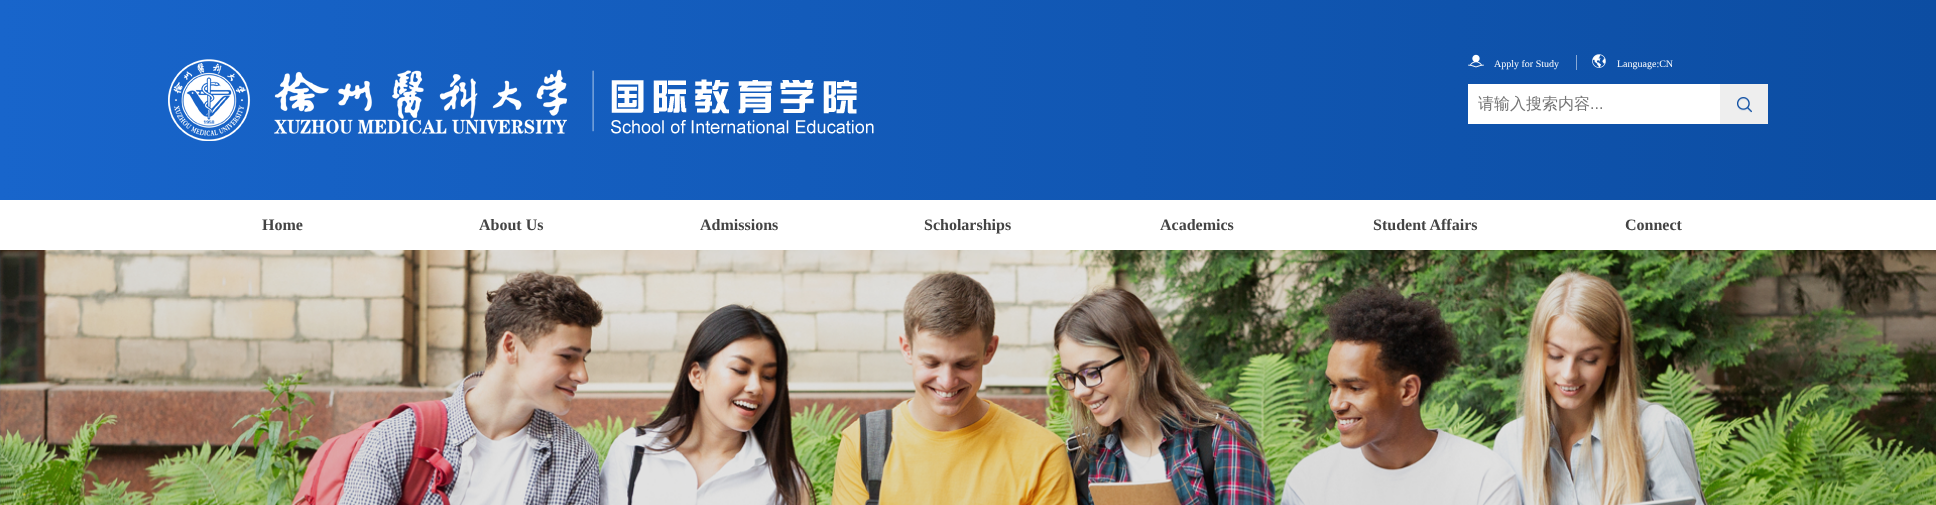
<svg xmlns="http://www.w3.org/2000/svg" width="1936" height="505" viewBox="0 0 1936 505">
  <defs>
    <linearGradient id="g1" gradientUnits="userSpaceOnUse" x1="0" y1="100" x2="1936" y2="100"><stop offset="0" stop-color="rgb(24,101,203)"/><stop offset="1" stop-color="rgb(12,77,162)"/></linearGradient>
  </defs>
  <rect width="100%" height="100%" fill="rgb(255,255,255)"/>
  <rect x="0" y="0" width="1936" height="200" fill="url(#g1)"/>
  <image x="168" y="59" width="706" height="82" href="pic1.png"/>
  <image x="1468" y="54" width="16" height="14" href="pic2.png"/>
  <text x="1494" y="67" font-family="Liberation Serif" font-size="10" fill="rgb(255,255,255)">Apply for Study</text>
  <rect x="1576" y="55" width="1" height="15" fill="rgb(135,168,213)"/>
  <image x="1592" y="54" width="14" height="14" href="pic3.png"/>
  <text x="1617" y="67" font-family="Liberation Serif" font-size="10" fill="rgb(255,255,255)">Language:CN</text>
  <rect x="1468" y="84" width="252" height="40" fill="rgb(255,255,255)"/>
  <text x="1478" y="109" font-family="WenQuanYi Zen Hei" font-size="16" font-weight="500" fill="rgb(117,117,117)">请输入搜索内容</text>
  <text x="1590" y="109" font-family="Liberation Sans" font-size="16" fill="rgb(117,117,117)">...</text>
  <rect x="1720" y="84" width="48" height="40" fill="rgb(238,238,238)"/>
  <image x="1737" y="97" width="15" height="16" href="pic4.png"/>
  <g font-family="Liberation Serif" font-size="16" font-weight="bold" fill="rgb(68,68,68)">
    <text x="262" y="230">Home</text>
    <text x="479" y="230">About Us</text>
    <text x="700" y="230">Admissions</text>
    <text x="924" y="230">Scholarships</text>
    <text x="1160" y="230">Academics</text>
    <text x="1373" y="230">Student Affairs</text>
    <text x="1625" y="230">Connect</text>
  </g>
  <image x="0" y="250" width="1936" height="255" href="pic5.png"/>
</svg>
